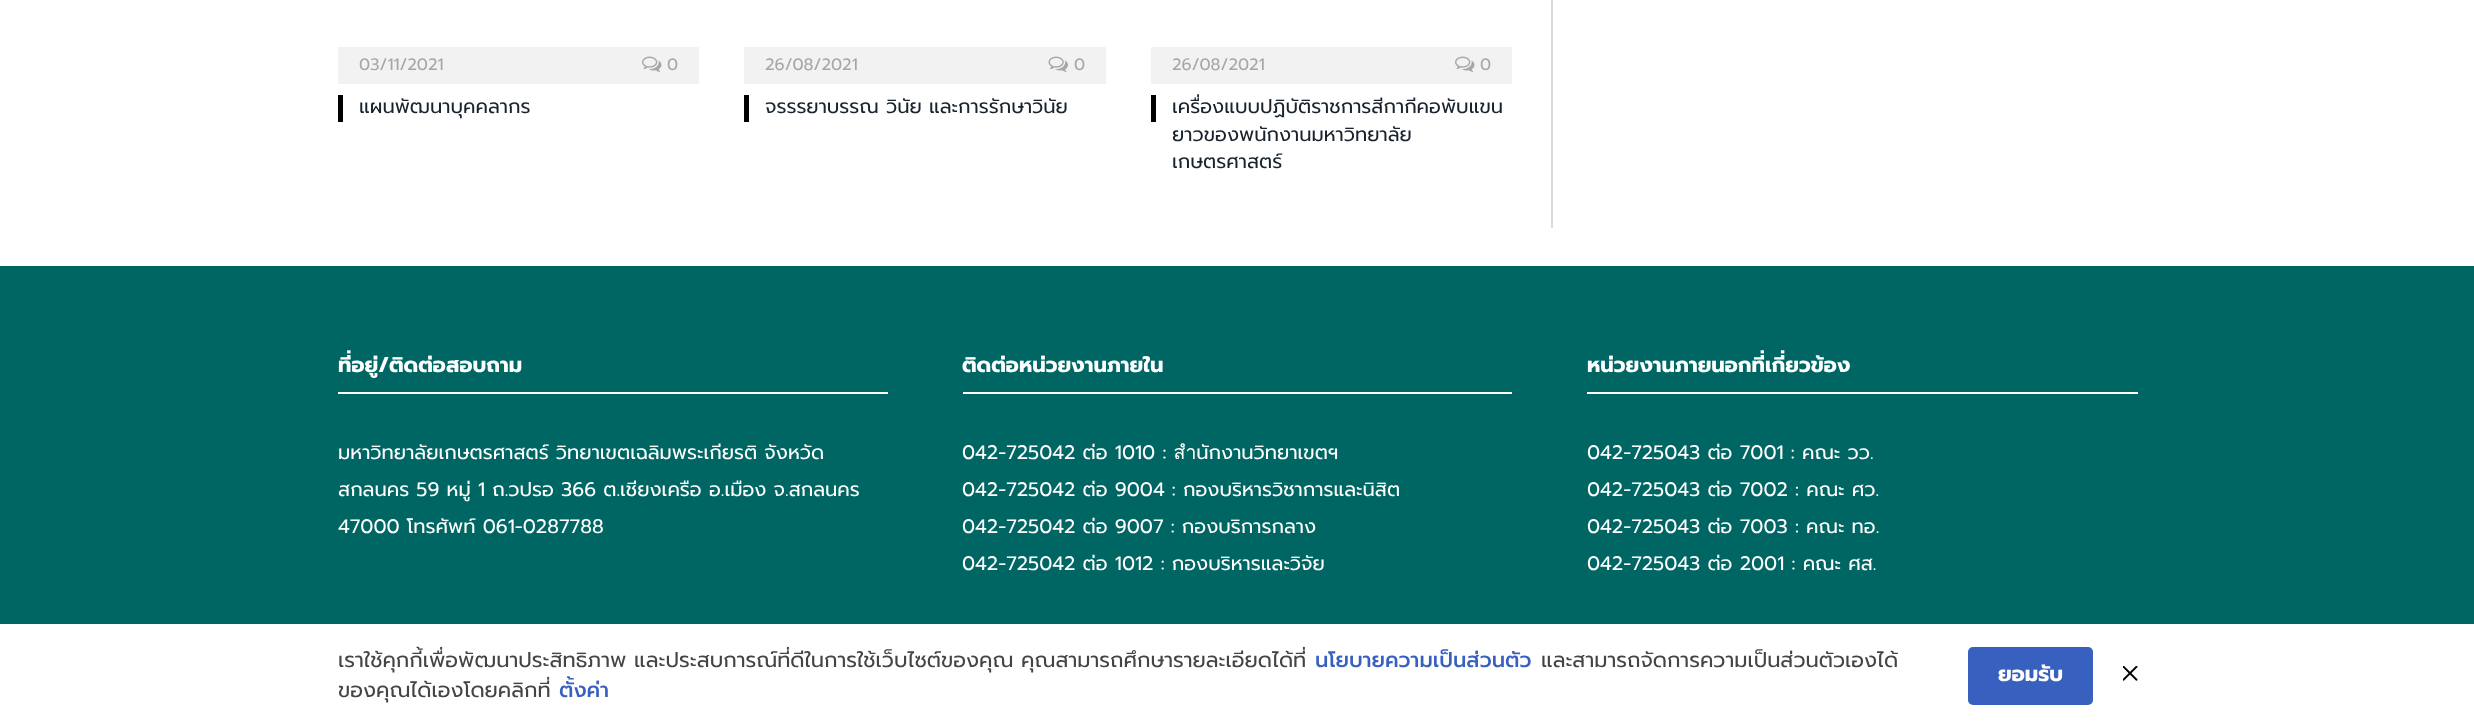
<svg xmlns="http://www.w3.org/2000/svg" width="2474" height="727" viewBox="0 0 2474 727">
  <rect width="100%" height="100%" fill="rgb(255,255,255)"/>
  <rect x="338" y="47" width="361" height="37" fill="rgb(242,242,242)"/>
  <text x="359" y="70" font-family="Prompt" font-size="16.5" fill="rgb(166,166,166)">03/11/2021</text>
  <image x="642" y="56" width="20" height="16" href="pic1.png"/>
  <text x="667" y="70" font-family="Prompt" font-size="16.5" fill="rgb(166,166,166)">0</text>
  <rect x="338" y="95" width="5" height="27" fill="rgb(0,0,0)"/>
  <text x="359" y="113" font-family="Prompt" font-size="19.5" fill="rgb(25,35,45)">แผนพัฒนาบุคคลากร</text>
  <rect x="744" y="47" width="362" height="37" fill="rgb(242,242,242)"/>
  <text x="765" y="70" font-family="Prompt" font-size="16.5" fill="rgb(166,166,166)">26/08/2021</text>
  <image x="1048" y="56" width="20" height="16" href="pic2.png"/>
  <text x="1074" y="70" font-family="Prompt" font-size="16.5" fill="rgb(166,166,166)">0</text>
  <rect x="744" y="95" width="5" height="27" fill="rgb(0,0,0)"/>
  <text x="765" y="113" font-family="Prompt" font-size="19.5" fill="rgb(25,35,45)">จรรรยาบรรณ วินัย และการรักษาวินัย</text>
  <rect x="1151" y="47" width="361" height="37" fill="rgb(242,242,242)"/>
  <text x="1172" y="70" font-family="Prompt" font-size="16.5" fill="rgb(166,166,166)">26/08/2021</text>
  <image x="1455" y="56" width="20" height="16" href="pic1.png"/>
  <text x="1480" y="70" font-family="Prompt" font-size="16.5" fill="rgb(166,166,166)">0</text>
  <rect x="1151" y="95" width="5" height="27" fill="rgb(0,0,0)"/>
  <g font-family="Prompt" font-size="19.5" fill="rgb(25,35,45)">
    <text>
      <tspan x="1172" y="113">เครื่องแบบปฏิบัติราชการสีกากีคอพับแขน</tspan>
      <tspan x="1172" y="141">ยาวของพนักงานมหาวิทยาลัย</tspan>
      <tspan x="1172" y="168">เกษตรศาสตร์</tspan>
    </text>
  </g>
  <rect x="1551" y="0" width="2" height="228" fill="rgb(217,217,217)"/>
  <rect x="0" y="266" width="2474" height="358" fill="rgb(0,102,100)"/>
  <rect x="338" y="392" width="550" height="2" fill="rgb(255,255,255)"/>
  <text x="338" y="372" font-family="Prompt" font-size="21" font-weight="bold" fill="rgb(255,255,255)">ที่อยู่/ติดต่อสอบถาม</text>
  <g font-family="Prompt" font-size="19.5" fill="rgb(255,255,255)">
    <text>
      <tspan x="338" y="459">มหาวิทยาลัยเกษตรศาสตร์ วิทยาเขตเฉลิมพระเกียรติ จังหวัด</tspan>
      <tspan x="338" y="496">สกลนคร 59 หมู่ 1 ถ.วปรอ 366 ต.เชียงเครือ อ.เมือง จ.สกลนคร</tspan>
      <tspan x="338" y="533">47000 โทรศัพท์ 061-0287788</tspan>
    </text>
  </g>
  <rect x="963" y="392" width="549" height="2" fill="rgb(255,255,255)"/>
  <text x="962" y="372" font-family="Prompt" font-size="21" font-weight="bold" fill="rgb(255,255,255)">ติดต่อหน่วยงานภายใน</text>
  <g font-family="Prompt" font-size="19.5" fill="rgb(255,255,255)">
    <text>
      <tspan x="962" y="459">042-725042 ต่อ 1010 : สำนักงานวิทยาเขตฯ</tspan>
      <tspan x="962" y="496">042-725042 ต่อ 9004 : กองบริหารวิชาการและนิสิต</tspan>
      <tspan x="962" y="533">042-725042 ต่อ 9007 : กองบริการกลาง</tspan>
      <tspan x="962" y="570">042-725042 ต่อ 1012 : กองบริหารและวิจัย</tspan>
    </text>
  </g>
  <rect x="1587" y="392" width="551" height="2" fill="rgb(255,255,255)"/>
  <text x="1587" y="372" font-family="Prompt" font-size="21" font-weight="bold" fill="rgb(255,255,255)">หน่วยงานภายนอกที่เกี่ยวข้อง</text>
  <g font-family="Prompt" font-size="19.5" fill="rgb(255,255,255)">
    <text>
      <tspan x="1587" y="459">042-725043 ต่อ 7001 : คณะ วว.</tspan>
      <tspan x="1587" y="496">042-725043 ต่อ 7002 : คณะ ศว.</tspan>
      <tspan x="1587" y="533">042-725043 ต่อ 7003 : คณะ ทอ.</tspan>
      <tspan x="1587" y="570">042-725043 ต่อ 2001 : คณะ ศส.</tspan>
    </text>
  </g>
  <text x="338" y="667" font-family="Prompt" font-size="21" fill="rgb(68,68,68)">เราใช้คุกกี้เพื่อพัฒนาประสิทธิภาพ และประสบการณ์ที่ดีในการใช้เว็บไซต์ของคุณ คุณสามารถศึกษารายละเอียดได้ที่</text>
  <text x="1315" y="667" font-family="Prompt" font-size="21" font-weight="500" fill="rgb(56,96,190)">นโยบายความเป็นส่วนตัว</text>
  <g font-family="Prompt" font-size="21" fill="rgb(68,68,68)">
    <text x="1541" y="667">และสามารถจัดการความเป็นส่วนตัวเองได้</text>
    <text x="338" y="697">ของคุณได้เองโดยคลิกที่</text>
  </g>
  <text x="559" y="697" font-family="Prompt" font-size="21" font-weight="500" fill="rgb(56,96,190)">ตั้งค่า</text>
  <rect x="1968" y="647" width="125" height="58" rx="5" fill="rgb(56,96,190)"/>
  <text x="1998" y="681" font-family="Prompt" font-size="21" font-weight="bold" fill="rgb(255,255,255)">ยอมรับ</text>
  <image x="2123" y="666" width="15" height="15" href="pic3.png"/>
</svg>
